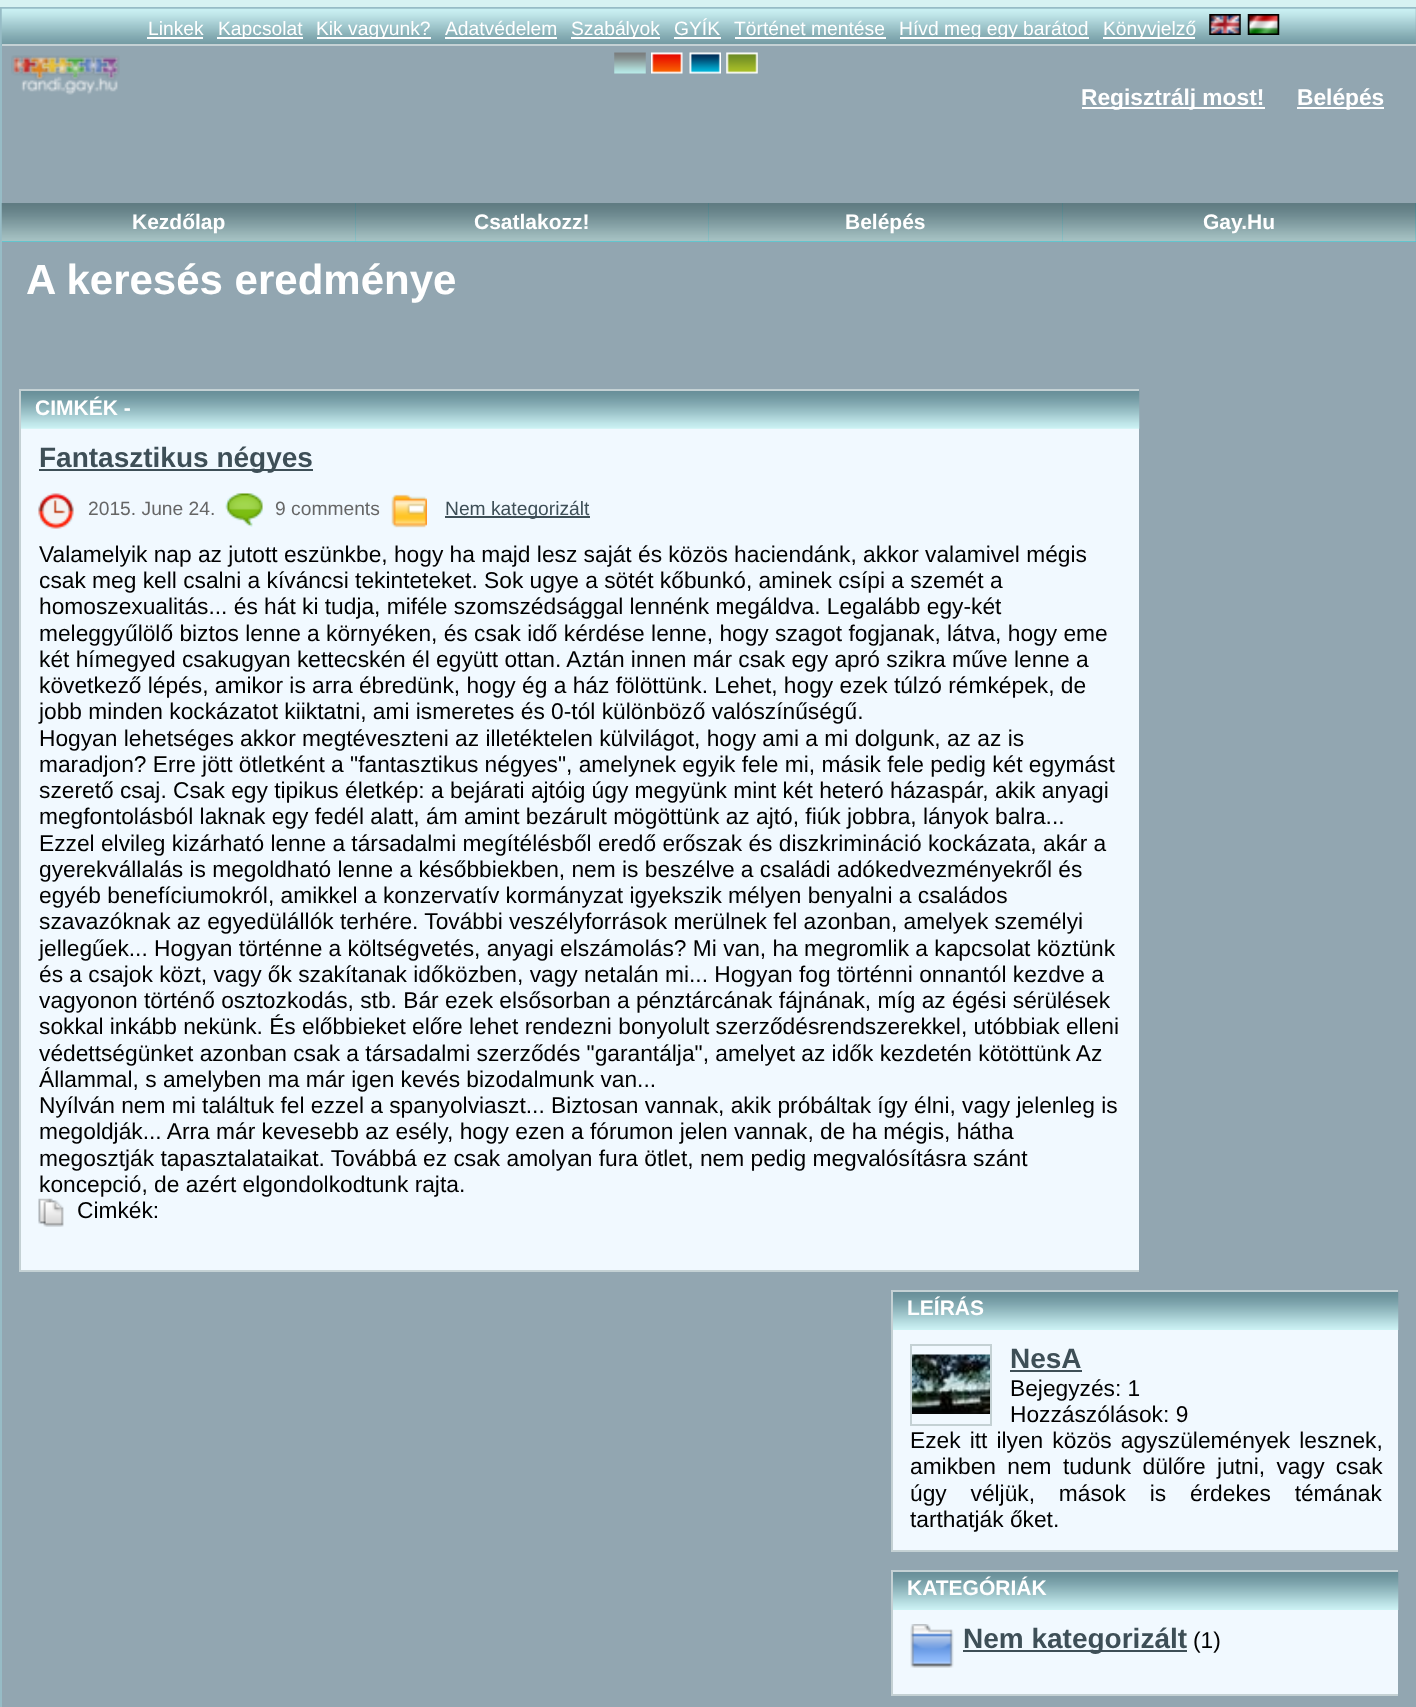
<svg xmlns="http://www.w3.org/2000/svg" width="1416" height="1707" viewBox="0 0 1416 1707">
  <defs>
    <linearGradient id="g1" gradientUnits="userSpaceOnUse" x1="709" y1="203" x2="709" y2="242"><stop offset="0" stop-color="rgb(18,131,143)"/><stop offset="1" stop-color="rgb(31,200,218)"/></linearGradient>
    <clipPath id="clip1"><rect x="19" y="389" width="1120" height="901"/></clipPath>
    <clipPath id="clip2"><rect x="891" y="1290" width="507" height="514"/></clipPath>
  </defs>
  <rect width="100%" height="100%" fill="rgb(255,255,255)"/>
  <image x="0" y="0" width="1416" height="7" href="pic1.png"/>
  <rect x="1" y="8" width="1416" height="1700" fill="rgb(146,166,177)" stroke="rgb(151,188,198)" stroke-width="2"/>
  <image x="1" y="8" width="1415" height="38" href="pic2.png"/>
  <rect x="2" y="44" width="1414" height="2" fill="rgb(196,209,212)"/>
  <text x="148" y="35" font-family="Liberation Sans" font-size="19.25" fill="rgb(255,255,255)">Linkek</text>
  <rect x="147" y="37" width="56" height="2" fill="rgb(255,255,255)"/>
  <rect x="217" y="37" width="86" height="2" fill="rgb(255,255,255)"/>
  <text x="218" y="35" font-family="Liberation Sans" font-size="19.25" fill="rgb(255,255,255)">Kapcsolat</text>
  <rect x="317" y="37" width="114" height="2" fill="rgb(255,255,255)"/>
  <g font-family="Liberation Sans" font-size="19.25" fill="rgb(255,255,255)">
    <text x="316" y="35">Kik vagyunk?</text>
    <text x="445" y="35">Adatvédelem</text>
  </g>
  <rect x="445" y="37" width="112" height="2" fill="rgb(255,255,255)"/>
  <rect x="571" y="37" width="89" height="2" fill="rgb(255,255,255)"/>
  <g font-family="Liberation Sans" font-size="19.25" fill="rgb(255,255,255)">
    <text x="571" y="35">Szabályok</text>
    <text x="674" y="35">GYÍK</text>
  </g>
  <rect x="674" y="37" width="47" height="2" fill="rgb(255,255,255)"/>
  <text x="734" y="35" font-family="Liberation Sans" font-size="19.25" fill="rgb(255,255,255)">Történet mentése</text>
  <rect x="735" y="37" width="151" height="2" fill="rgb(255,255,255)"/>
  <rect x="900" y="37" width="189" height="2" fill="rgb(255,255,255)"/>
  <text x="899" y="35" font-family="Liberation Sans" font-size="19.25" fill="rgb(255,255,255)">Hívd meg egy barátod</text>
  <rect x="1103" y="37" width="92" height="2" fill="rgb(255,255,255)"/>
  <text x="1103" y="35" font-family="Liberation Sans" font-size="19.25" fill="rgb(255,255,255)">Könyvjelző</text>
  <image x="1209" y="14" width="32" height="21" href="pic3.png"/>
  <image x="1247" y="14" width="33" height="21" href="pic4.png"/>
  <image x="11" y="55" width="109" height="40" href="pic5.png"/>
  <image x="614" y="52" width="32" height="22" href="pic6.png"/>
  <image x="651" y="52" width="32" height="22" href="pic7.png"/>
  <image x="689" y="52" width="32" height="22" href="pic8.png"/>
  <image x="726" y="52" width="32" height="22" href="pic9.png"/>
  <rect x="1082" y="107" width="183" height="2" fill="rgb(255,255,255)"/>
  <text x="1081" y="105" font-family="Liberation Sans" font-size="22.75" font-weight="bold" fill="rgb(255,255,255)">Regisztrálj most!</text>
  <rect x="1297" y="107" width="87" height="2" fill="rgb(255,255,255)"/>
  <text x="1297" y="105" font-family="Liberation Sans" font-size="22.75" font-weight="bold" fill="rgb(255,255,255)">Belépés</text>
  <rect x="2" y="203" width="1414" height="39" fill="url(#g1)"/>
  <image x="1" y="203" width="355" height="39" href="pic10.png"/>
  <text x="132" y="229" font-family="Liberation Sans" font-size="21" font-weight="bold" fill="rgb(255,255,255)">Kezdőlap</text>
  <image x="355" y="203" width="354" height="39" href="pic11.png"/>
  <text x="474" y="229" font-family="Liberation Sans" font-size="21" font-weight="bold" fill="rgb(255,255,255)">Csatlakozz!</text>
  <image x="708" y="203" width="355" height="39" href="pic12.png"/>
  <text x="845" y="229" font-family="Liberation Sans" font-size="21" font-weight="bold" fill="rgb(255,255,255)">Belépés</text>
  <image x="1062" y="203" width="354" height="39" href="pic11.png"/>
  <text x="1203" y="229" font-family="Liberation Sans" font-size="21" font-weight="bold" fill="rgb(255,255,255)">Gay.Hu</text>
  <text x="26" y="294" font-family="Liberation Sans" font-size="42" font-weight="bold" fill="rgb(255,255,255)">A keresés eredménye</text>
  <rect x="21" y="428" width="1118" height="842" fill="rgb(241,249,255)"/>
  <image x="21" y="390" width="1119" height="39" href="pic13.png"/>
  <g clip-path="url(#clip1)">
    <rect x="20" y="390" width="1122" height="881" fill="none" stroke="rgb(196,209,212)" stroke-width="2"/>
  </g>
  <text x="35" y="415" font-family="Liberation Sans" font-size="21" font-weight="bold" fill="rgb(255,255,255)">CIMKÉK -</text>
  <rect x="39" y="469" width="274" height="2" fill="rgb(62,79,87)"/>
  <text x="39" y="467" font-family="Liberation Sans" font-size="28" font-weight="bold" fill="rgb(62,79,87)">Fantasztikus négyes</text>
  <image x="38" y="493" width="36" height="36" href="pic14.png"/>
  <text x="88" y="515" font-family="Liberation Sans" font-size="19.25" fill="rgb(102,102,102)">2015. June 24.</text>
  <image x="225" y="493" width="38" height="34" href="pic15.png"/>
  <text x="275" y="515" font-family="Liberation Sans" font-size="19.25" fill="rgb(102,102,102)">9 comments</text>
  <image x="391" y="494" width="36" height="34" href="pic16.png"/>
  <rect x="445" y="516" width="145" height="2" fill="rgb(62,79,87)"/>
  <text x="445" y="515" font-family="Liberation Sans" font-size="19.25" fill="rgb(62,79,87)">Nem kategorizált</text>
  <g font-family="Liberation Sans" font-size="22.75" fill="rgb(0,0,0)">
    <text>
      <tspan x="39" y="562">Valamelyik nap az jutott eszünkbe, hogy ha majd lesz saját és közös haciendánk, akkor valamivel mégis</tspan>
      <tspan x="39" y="588">csak meg kell csalni a kíváncsi tekinteteket. Sok ugye a sötét kőbunkó, aminek csípi a szemét a</tspan>
      <tspan x="39" y="614">homoszexualitás... és hát ki tudja, miféle szomszédsággal lennénk megáldva. Legalább egy-két</tspan>
      <tspan x="39" y="641">meleggyűlölő biztos lenne a környéken, és csak idő kérdése lenne, hogy szagot fogjanak, látva, hogy eme</tspan>
      <tspan x="39" y="667">két hímegyed csakugyan kettecskén él együtt ottan. Aztán innen már csak egy apró szikra műve lenne a</tspan>
      <tspan x="39" y="693">következő lépés, amikor is arra ébredünk, hogy ég a ház fölöttünk. Lehet, hogy ezek túlzó rémképek, de</tspan>
      <tspan x="39" y="719">jobb minden kockázatot kiiktatni, ami ismeretes és 0-tól különböző valószínűségű.</tspan>
      <tspan x="39" y="746">Hogyan lehetséges akkor megtéveszteni az illetéktelen külvilágot, hogy ami a mi dolgunk, az az is</tspan>
      <tspan x="39" y="772">maradjon? Erre jött ötletként a "fantasztikus négyes", amelynek egyik fele mi, másik fele pedig két egymást</tspan>
      <tspan x="39" y="798">szerető csaj. Csak egy tipikus életkép: a bejárati ajtóig úgy megyünk mint két heteró házaspár, akik anyagi</tspan>
      <tspan x="39" y="824">megfontolásból laknak egy fedél alatt, ám amint bezárult mögöttünk az ajtó, fiúk jobbra, lányok balra...</tspan>
      <tspan x="39" y="851">Ezzel elvileg kizárható lenne a társadalmi megítélésből eredő erőszak és diszkrimináció kockázata, akár a</tspan>
      <tspan x="39" y="877">gyerekvállalás is megoldható lenne a későbbiekben, nem is beszélve a családi adókedvezményekről és</tspan>
      <tspan x="39" y="903">egyéb benefíciumokról, amikkel a konzervatív kormányzat igyekszik mélyen benyalni a családos</tspan>
      <tspan x="39" y="929">szavazóknak az egyedülállók terhére. További veszélyforrások merülnek fel azonban, amelyek személyi</tspan>
      <tspan x="39" y="956">jellegűek... Hogyan történne a költségvetés, anyagi elszámolás? Mi van, ha megromlik a kapcsolat köztünk</tspan>
      <tspan x="39" y="982">és a csajok közt, vagy ők szakítanak időközben, vagy netalán mi... Hogyan fog történni onnantól kezdve a</tspan>
      <tspan x="39" y="1008">vagyonon történő osztozkodás, stb. Bár ezek elsősorban a pénztárcának fájnának, míg az égési sérülések</tspan>
      <tspan x="39" y="1034">sokkal inkább nekünk. És előbbieket előre lehet rendezni bonyolult szerződésrendszerekkel, utóbbiak elleni</tspan>
      <tspan x="39" y="1061">védettségünket azonban csak a társadalmi szerződés "garantálja", amelyet az idők kezdetén kötöttünk Az</tspan>
      <tspan x="39" y="1087">Állammal, s amelyben ma már igen kevés bizodalmunk van...</tspan>
      <tspan x="39" y="1113">Nyílván nem mi találtuk fel ezzel a spanyolviaszt... Biztosan vannak, akik próbáltak így élni, vagy jelenleg is</tspan>
      <tspan x="39" y="1139">megoldják... Arra már kevesebb az esély, hogy ezen a fórumon jelen vannak, de ha mégis, hátha</tspan>
      <tspan x="39" y="1166">megosztják tapasztalataikat. Továbbá ez csak amolyan fura ötlet, nem pedig megvalósításra szánt</tspan>
      <tspan x="39" y="1192">koncepció, de azért elgondolkodtunk rajta.</tspan>
    </text>
  </g>
  <image x="38" y="1198" width="26" height="29" href="pic17.png"/>
  <text x="77" y="1218" font-family="Liberation Sans" font-size="22.75" fill="rgb(0,0,0)">Cimkék:</text>
  <rect x="893" y="1330" width="505" height="220" fill="rgb(241,249,255)"/>
  <image x="890" y="1291" width="509" height="39" href="pic18.png"/>
  <g clip-path="url(#clip2)">
    <rect x="892" y="1291" width="509" height="260" fill="none" stroke="rgb(196,209,212)" stroke-width="2"/>
  </g>
  <text x="907" y="1315" font-family="Liberation Sans" font-size="21" font-weight="bold" fill="rgb(255,255,255)">LEÍRÁS</text>
  <image x="912" y="1354" width="78" height="60" href="pic19.png"/>
  <rect x="911" y="1345" width="80" height="80" fill="none" stroke="rgb(196,209,212)" stroke-width="2"/>
  <text x="1010" y="1368" font-family="Liberation Sans" font-size="28" font-weight="bold" fill="rgb(62,79,87)">NesA</text>
  <rect x="1010" y="1370" width="72" height="2" fill="rgb(62,79,87)"/>
  <g font-family="Liberation Sans" font-size="22.75" fill="rgb(0,0,0)">
    <text>
      <tspan x="1010" y="1396">Bejegyzés: 1</tspan>
      <tspan x="1010" y="1422">Hozzászólások: 9</tspan>
    </text>
    <text>
      <tspan x="910" y="1448" word-spacing="2.75">Ezek itt ilyen közös agyszülemények lesznek,</tspan>
      <tspan x="910" y="1474" word-spacing="5">amikben nem tudunk dülőre jutni, vagy csak</tspan>
      <tspan x="910" y="1501" word-spacing="17.5">úgy véljük, mások is érdekes témának</tspan>
      <tspan x="910" y="1527">tarthatják őket.</tspan>
    </text>
  </g>
  <rect x="893" y="1610" width="505" height="84" fill="rgb(241,249,255)"/>
  <image x="890" y="1571" width="509" height="39" href="pic18.png"/>
  <g clip-path="url(#clip2)">
    <rect x="892" y="1571" width="509" height="124" fill="none" stroke="rgb(196,209,212)" stroke-width="2"/>
  </g>
  <text x="907" y="1595" font-family="Liberation Sans" font-size="21" font-weight="bold" fill="rgb(255,255,255)">KATEGÓRIÁK</text>
  <image x="910" y="1624" width="44" height="44" href="pic20.png"/>
  <rect x="963" y="1650" width="224" height="2" fill="rgb(62,79,87)"/>
  <text x="963" y="1648" font-family="Liberation Sans" font-size="28" font-weight="bold" fill="rgb(62,79,87)">Nem kategorizált</text>
  <text x="1193" y="1648" font-family="Liberation Sans" font-size="22.75" fill="rgb(0,0,0)">(1)</text>
</svg>
